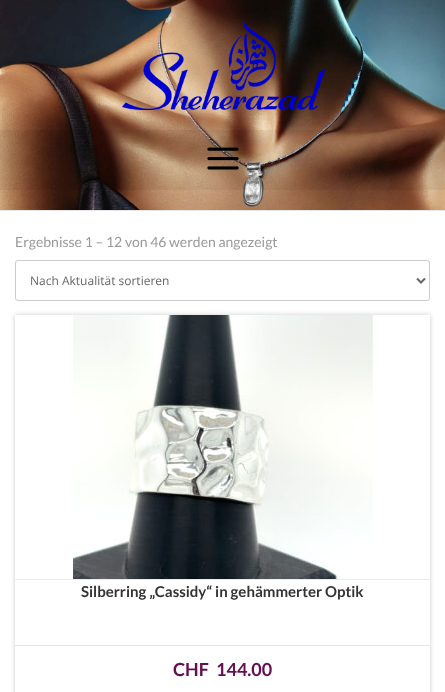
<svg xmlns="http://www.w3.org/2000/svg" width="445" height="692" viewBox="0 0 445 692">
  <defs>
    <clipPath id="clip1"><path d="M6 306H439V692H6ZM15 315H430V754H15Z" clip-rule="evenodd"/></clipPath>
  </defs>
  <rect width="100%" height="100%" fill="rgb(255,255,255)"/>
  <rect x="0" y="210" width="445" height="1" fill="rgb(230,230,230)"/>
  <image x="0" y="0" width="445" height="210" href="pic1.png"/>
  <image x="122" y="20" width="203" height="90" href="pic2.png"/>
  <rect x="0" y="130" width="445" height="60" fill="rgba(0,0,0,0.05)"/>
  <image x="207" y="147" width="32" height="23" href="pic3.png"/>
  <text x="15" y="247" font-family="Lato" font-size="14" fill="rgb(153,153,153)">Ergebnisse 1 – 12 von 46 werden angezeigt</text>
  <rect x="15.5" y="260.5" width="414" height="40" rx="2.5" fill="none" stroke="rgb(204,204,204)"/>
  <path d="M417 278.5L421 282.5L425 278.5" fill="none" stroke="rgb(102,102,102)" stroke-width="2"/>
  <text x="30" y="285" font-family="Open Sans" font-size="12" fill="rgb(102,102,102)">Nach Aktualität sortieren</text>
  <g clip-path="url(#clip1)">
    <rect x="15" y="315" width="415" height="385" fill="rgb(204,204,204)" filter="blur(2.5px)"/>
  </g>
  <rect x="15" y="579" width="415" height="1" fill="rgb(235,235,235)"/>
  <image x="73" y="315" width="300" height="264" href="pic4.png"/>
  <text x="81" y="597" font-family="Lato" font-size="15" font-weight="bold" fill="rgb(51,51,51)">Silberring „Cassidy“ in gehämmerter Optik</text>
  <rect x="15" y="645" width="415" height="1" fill="rgb(230,230,230)"/>
  <g font-family="Lato" font-size="18" font-weight="bold" fill="rgb(101,14,84)">
    <text x="173" y="676">CHF</text>
    <text x="216" y="676">144.00</text>
  </g>
</svg>
